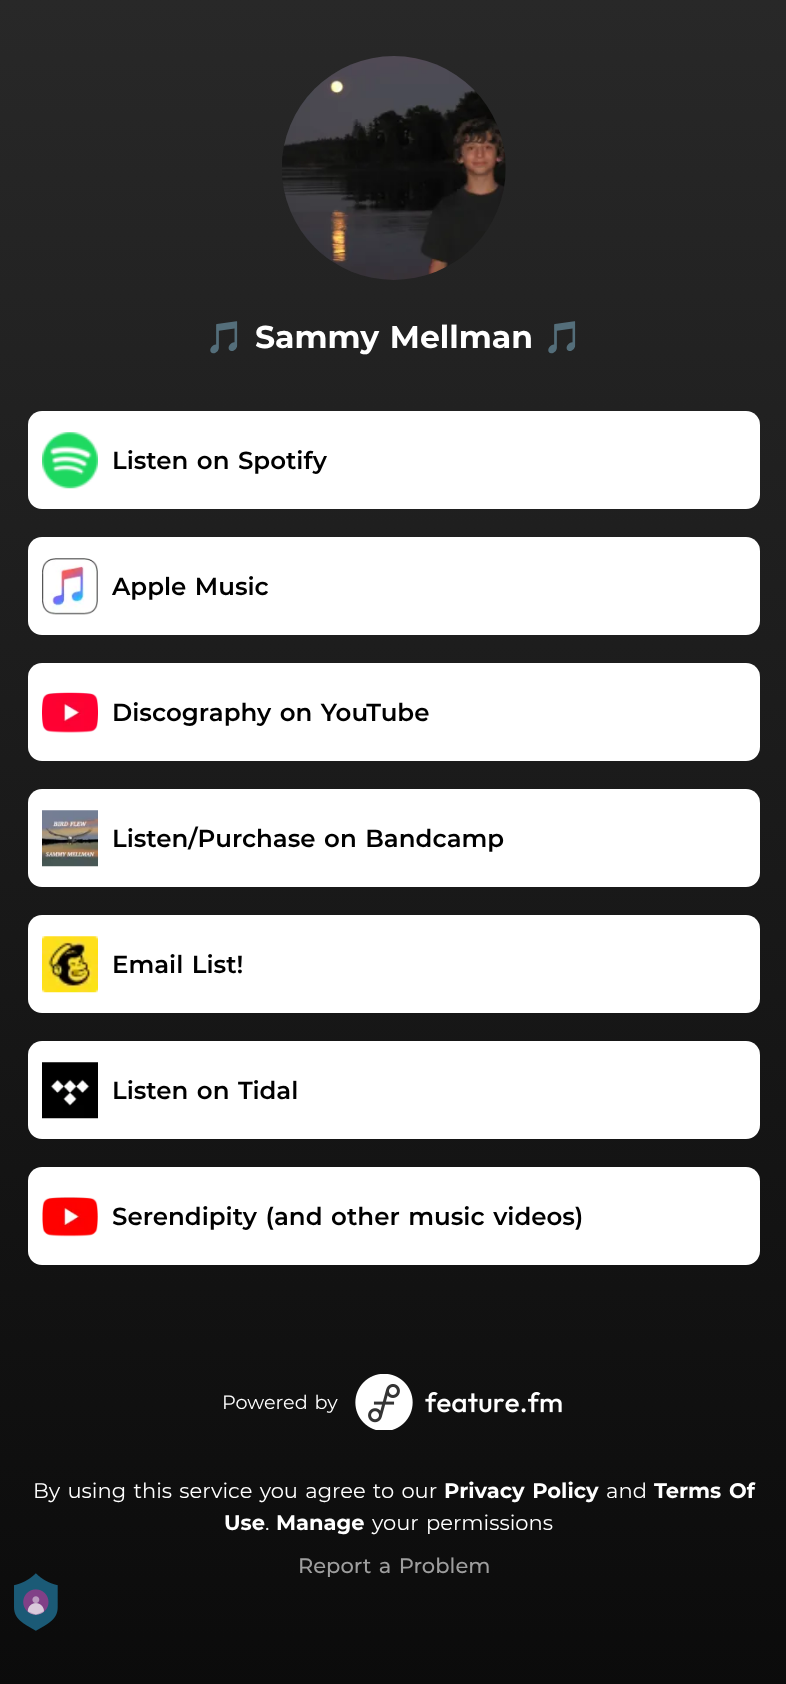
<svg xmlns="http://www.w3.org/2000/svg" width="786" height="1684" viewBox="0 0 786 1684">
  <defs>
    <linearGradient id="g1" gradientUnits="userSpaceOnUse" x1="394" y1="0" x2="394" y2="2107"><stop offset="0" stop-color="rgb(40,40,40)"/><stop offset="1" stop-color="rgb(4,4,4)"/></linearGradient>
  </defs>
  <rect width="100%" height="100%" fill="rgb(255,255,255)"/>
  <rect x="0" y="0" width="786" height="1684" fill="url(#g1)"/>
  <image x="282" y="56" width="224" height="224" href="pic1.png"/>
  <text x="205" y="348" font-family="Noto Color Emoji" font-size="31.5" font-weight="bold" fill="rgb(255,255,255)">🎵</text>
  <text x="255" y="348" word-spacing="1.75" font-family="Montserrat" font-size="31.5" font-weight="bold" fill="rgb(255,255,255)">Sammy Mellman</text>
  <text x="543" y="348" font-family="Noto Color Emoji" font-size="31.5" font-weight="bold" fill="rgb(255,255,255)">🎵</text>
  <rect x="28" y="411" width="732" height="98" rx="14" fill="rgb(255,255,255)"/>
  <image x="42" y="432" width="56" height="57" href="pic2.png"/>
  <text x="112" y="469" word-spacing="1.75" font-family="Montserrat" font-size="24.5" font-weight="600" fill="rgb(0,0,0)">Listen on Spotify</text>
  <rect x="28" y="537" width="732" height="98" rx="14" fill="rgb(255,255,255)"/>
  <image x="42" y="558" width="56" height="57" href="pic3.png"/>
  <text x="112" y="595" word-spacing="1.75" font-family="Montserrat" font-size="24.5" font-weight="600" fill="rgb(0,0,0)">Apple Music</text>
  <rect x="28" y="663" width="732" height="98" rx="14" fill="rgb(255,255,255)"/>
  <image x="42" y="692" width="56" height="41" href="pic4.png"/>
  <text x="112" y="721" word-spacing="1.75" font-family="Montserrat" font-size="24.5" font-weight="600" fill="rgb(0,0,0)">Discography on YouTube</text>
  <rect x="28" y="789" width="732" height="98" rx="14" fill="rgb(255,255,255)"/>
  <image x="42" y="810" width="56" height="57" href="pic5.png"/>
  <text x="112" y="847" word-spacing="1.75" font-family="Montserrat" font-size="24.5" font-weight="600" fill="rgb(0,0,0)">Listen/Purchase on Bandcamp</text>
  <rect x="28" y="915" width="732" height="98" rx="14" fill="rgb(255,255,255)"/>
  <image x="42" y="936" width="56" height="57" href="pic6.png"/>
  <text x="112" y="973" word-spacing="1.75" font-family="Montserrat" font-size="24.5" font-weight="600" fill="rgb(0,0,0)">Email List!</text>
  <rect x="28" y="1041" width="732" height="98" rx="14" fill="rgb(255,255,255)"/>
  <image x="42" y="1062" width="56" height="57" href="pic7.png"/>
  <text x="112" y="1099" word-spacing="1.75" font-family="Montserrat" font-size="24.5" font-weight="600" fill="rgb(0,0,0)">Listen on Tidal</text>
  <rect x="28" y="1167" width="732" height="98" rx="14" fill="rgb(255,255,255)"/>
  <image x="42" y="1197" width="56" height="40" href="pic8.png"/>
  <text x="112" y="1225" word-spacing="1.75" font-family="Montserrat" font-size="24.5" font-weight="600" fill="rgb(0,0,0)">Serendipity (and other music videos)</text>
  <text x="222" y="1409" word-spacing="1.75" font-family="Montserrat" font-size="19.25" fill="rgb(255,255,255)">Powered by</text>
  <image x="355" y="1374" width="207" height="56" href="pic9.png"/>
  <text x="33" y="1498" word-spacing="1.75" font-family="Montserrat" font-size="21" fill="rgb(255,255,255)">By using this service you agree to our</text>
  <text x="444" y="1498" word-spacing="1.75" font-family="Montserrat" font-size="21" font-weight="bold" fill="rgb(255,255,255)">Privacy Policy</text>
  <text x="606" y="1498" font-family="Montserrat" font-size="21" fill="rgb(255,255,255)">and</text>
  <g font-family="Montserrat" font-size="21" font-weight="bold" fill="rgb(255,255,255)">
    <text x="654" y="1498" word-spacing="1.75">Terms Of</text>
    <text x="224" y="1530">Use</text>
  </g>
  <text x="265" y="1530" font-family="Montserrat" font-size="21" fill="rgb(255,255,255)">.</text>
  <text x="276" y="1530" font-family="Montserrat" font-size="21" font-weight="bold" fill="rgb(255,255,255)">Manage</text>
  <text x="372" y="1530" word-spacing="1.75" font-family="Montserrat" font-size="21" fill="rgb(255,255,255)">your permissions</text>
  <text x="298" y="1573" word-spacing="1.75" font-family="Montserrat" font-size="21" font-weight="500" fill="rgb(158,158,158)">Report a Problem</text>
  <image x="14" y="1573" width="44" height="58" href="pic10.png"/>
</svg>
